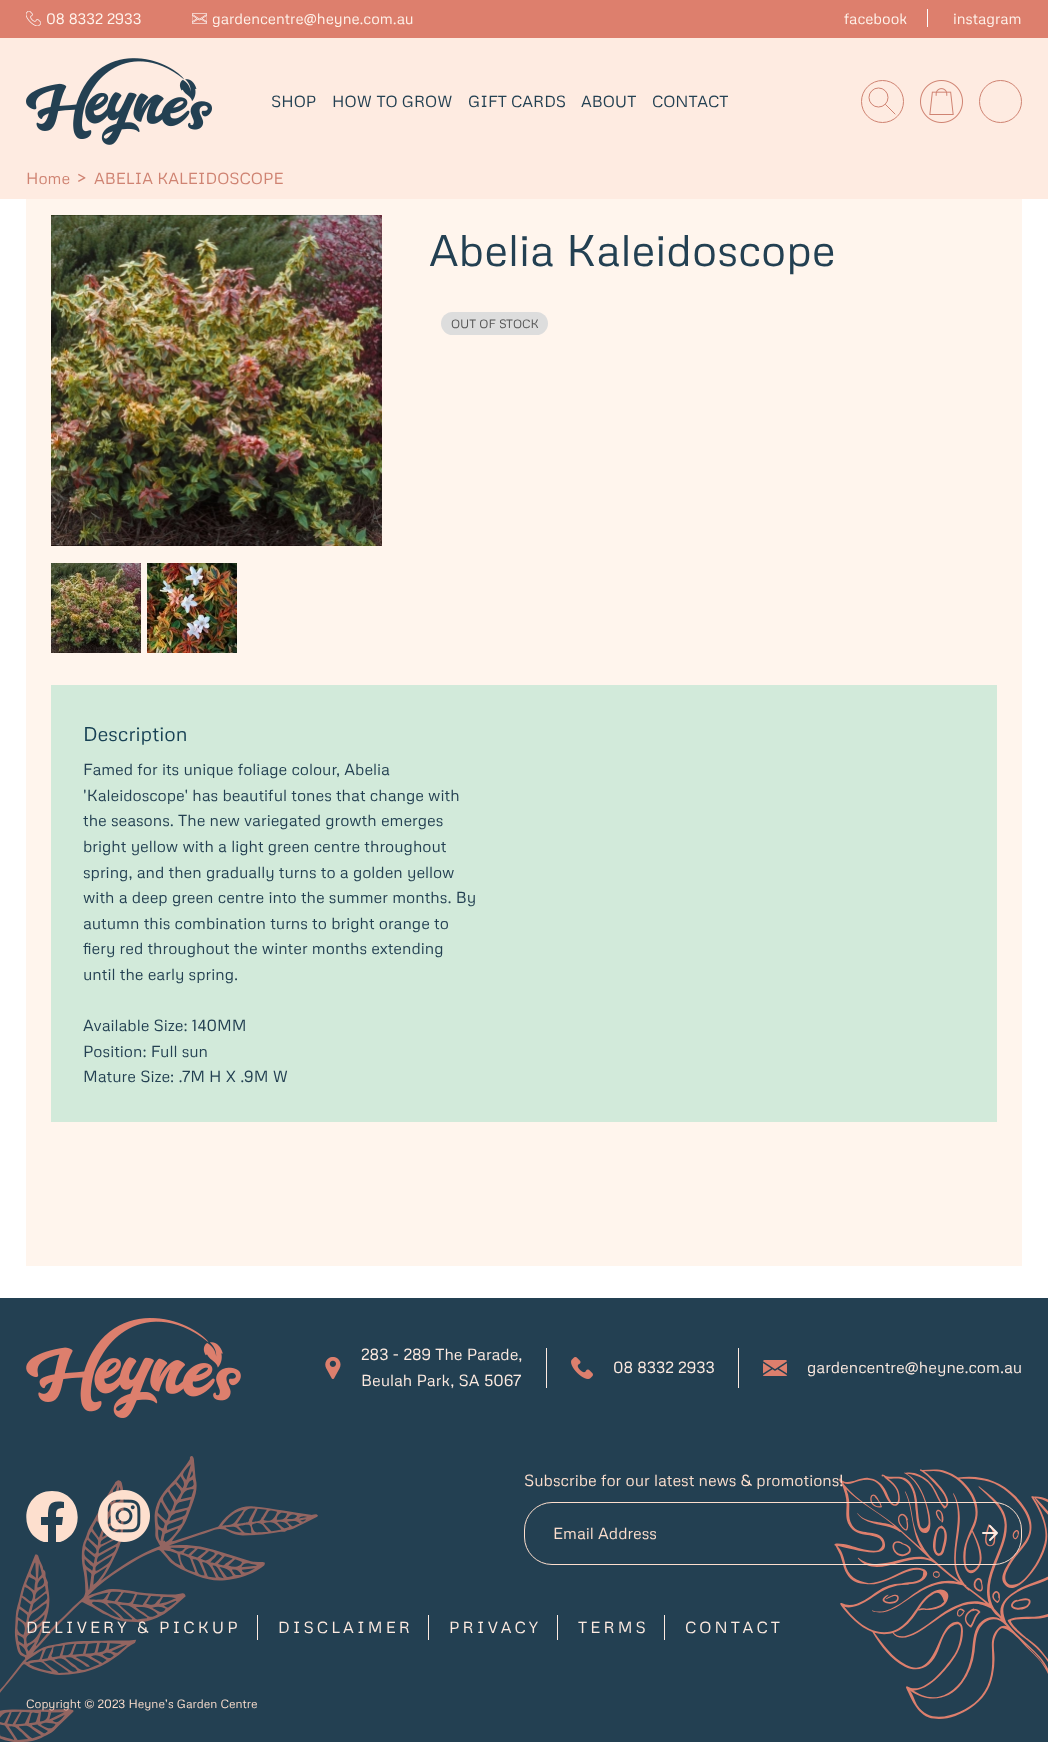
<svg xmlns="http://www.w3.org/2000/svg" width="1048" height="1742" viewBox="0 0 1048 1742">
  <defs>
    <clipPath id="clip1"><rect x="26" y="1491" width="52" height="51"/></clipPath>
  </defs>
  <rect width="100%" height="100%" fill="rgb(255,255,255)"/>
  <rect x="0" y="0" width="1048" height="38" fill="rgb(221,127,109)"/>
  <image x="26" y="11" width="15" height="15" href="pic1.png"/>
  <text x="46" y="24" font-family="Metrophobic" font-size="15" fill="rgb(255,245,237)">08 8332 2933</text>
  <image x="192" y="13" width="15" height="11" href="pic2.png"/>
  <g font-family="Metrophobic" font-size="15" fill="rgb(255,245,237)">
    <text x="212" y="24">gardencentre@heyne.com.au</text>
    <text x="844" y="24">facebook</text>
  </g>
  <rect x="927" y="9" width="1" height="18" fill="rgb(255,255,255)"/>
  <text x="953" y="24" font-family="Metrophobic" font-size="15" fill="rgb(255,245,237)">instagram</text>
  <rect x="0" y="38" width="1048" height="161" fill="rgb(254,235,225)"/>
  <image x="26" y="58" width="186" height="87" href="pic3.png"/>
  <g font-family="Metrophobic" font-size="16" fill="rgb(35,64,82)">
    <text x="271" y="107">SHOP</text>
    <text x="332" y="107">HOW TO GROW</text>
    <text x="468" y="107">GIFT CARDS</text>
    <text x="581" y="107">ABOUT</text>
    <text x="652" y="107">CONTACT</text>
  </g>
  <circle cx="882.5" cy="101.5" r="21" fill="none" stroke="rgb(207,131,114)"/>
  <circle cx="878.5" cy="97.5" r="9.5" fill="none" stroke="rgb(207,131,114)"/>
  <path d="M885.5 104.5L895 114" fill="none" stroke="rgb(207,131,114)" stroke-linecap="round"/>
  <image x="920" y="80" width="43" height="43" href="pic4.png"/>
  <circle cx="1000.5" cy="101.5" r="21" fill="none" stroke="rgb(207,131,114)"/>
  <g font-family="Metrophobic" font-size="16" fill="rgb(207,131,114)">
    <text x="26" y="184">Home</text>
    <text x="77" y="183">&gt;</text>
    <text x="94" y="184">ABELIA KALEIDOSCOPE</text>
  </g>
  <rect x="26" y="199" width="996" height="1067" fill="rgb(255,245,237)"/>
  <image x="51" y="215" width="331" height="331" href="pic5.png"/>
  <image x="51" y="563" width="90" height="90" href="pic6.png"/>
  <image x="147" y="563" width="90" height="90" href="pic7.png"/>
  <text x="429" y="266" font-family="Metrophobic" font-size="44" fill="rgb(35,64,82)">Abelia Kaleidoscope</text>
  <rect x="441" y="312" width="107" height="23" rx="11.5" fill="rgb(221,221,221)"/>
  <text x="451" y="328" font-family="Metrophobic" font-size="12" fill="rgb(85,85,85)">OUT OF STOCK</text>
  <rect x="51" y="685" width="946" height="437" fill="rgb(210,234,218)"/>
  <text x="83" y="741" font-family="Metrophobic" font-size="20" fill="rgb(23,65,84)">Description</text>
  <g font-family="Metrophobic" font-size="16" fill="rgb(35,64,82)">
    <text>
      <tspan x="83" y="775">Famed for its unique foliage colour, Abelia</tspan>
      <tspan x="83" y="801">'Kaleidoscope' has beautiful tones that change with</tspan>
      <tspan x="83" y="826">the seasons. The new variegated growth emerges</tspan>
      <tspan x="83" y="852">bright yellow with a light green centre throughout</tspan>
      <tspan x="83" y="878">spring, and then gradually turns to a golden yellow</tspan>
      <tspan x="83" y="903">with a deep green centre into the summer months. By</tspan>
      <tspan x="83" y="929">autumn this combination turns to bright orange to</tspan>
      <tspan x="83" y="954">fiery red throughout the winter months extending</tspan>
      <tspan x="83" y="980">until the early spring.</tspan>
    </text>
    <text>
      <tspan x="83" y="1031">Available Size: 140MM</tspan>
      <tspan x="83" y="1057">Position: Full sun</tspan>
      <tspan x="83" y="1082">Mature Size: .7M H X .9M W</tspan>
    </text>
  </g>
  <rect x="0" y="1298" width="1048" height="444" fill="rgb(35,64,82)"/>
  <image x="26" y="1318" width="215" height="100" href="pic8.png"/>
  <image x="325" y="1357" width="16" height="22" href="pic9.png"/>
  <g font-family="Metrophobic" font-size="16" fill="rgb(254,235,225)">
    <text>
      <tspan x="361" y="1360">283 - 289 The Parade,</tspan>
      <tspan x="361" y="1386">Beulah Park, SA 5067</tspan>
    </text>
  </g>
  <rect x="546" y="1348" width="1" height="40" fill="rgb(254,235,225)"/>
  <image x="571" y="1357" width="22" height="22" href="pic10.png"/>
  <text x="613" y="1373" font-family="Metrophobic" font-size="16" fill="rgb(254,235,225)">08 8332 2933</text>
  <rect x="738" y="1348" width="1" height="40" fill="rgb(254,235,225)"/>
  <image x="763" y="1360" width="24" height="16" href="pic11.png"/>
  <text x="807" y="1373" font-family="Metrophobic" font-size="16" fill="rgb(254,235,225)">gardencentre@heyne.com.au</text>
  <text x="26" y="1708" font-family="Metrophobic" font-size="12" fill="rgb(253,223,206)">Copyright © 2023 Heyne’s Garden Centre</text>
  <image x="0" y="1456" width="318" height="286" href="pic13.png"/>
  <g clip-path="url(#clip1)">
    <path d="M52 1491C20 1491 17 1538 48 1543V1525H41V1517H48C48 1504 50 1500 64 1502V1508C56 1508 56 1510 56 1517H63L62 1525H56V1543C87 1538 84 1491 52 1491Z" fill="rgb(253,223,206)"/>
  </g>
  <image x="98" y="1490" width="52" height="52" href="pic12.png"/>
  <image x="834" y="1469" width="214" height="250" href="pic14.png"/>
  <text x="524" y="1486" font-family="Metrophobic" font-size="16" fill="rgb(253,223,206)">Subscribe for our latest news &amp; promotions!</text>
  <rect x="524.5" y="1502.5" width="497" height="62" rx="27.5" fill="none" stroke="rgb(253,223,206)"/>
  <text x="553" y="1539" font-family="Metrophobic" font-size="16" fill="rgb(253,223,206)">Email Address</text>
  <path d="M983 1533H997M990 1526L997 1533L990 1540" fill="none" stroke="rgb(254,235,225)" stroke-width="2" stroke-linecap="round" stroke-linejoin="round"/>
  <rect x="257" y="1615" width="1" height="25" fill="rgb(254,235,225)"/>
  <text x="26" y="1633" font-family="Metrophobic" font-size="16" letter-spacing="3.1" fill="rgb(254,235,225)">DELIVERY &amp; PICKUP</text>
  <rect x="428" y="1615" width="1" height="25" fill="rgb(254,235,225)"/>
  <text x="278" y="1633" font-family="Metrophobic" font-size="16" letter-spacing="3.1" fill="rgb(254,235,225)">DISCLAIMER</text>
  <rect x="557" y="1615" width="1" height="25" fill="rgb(254,235,225)"/>
  <text x="449" y="1633" font-family="Metrophobic" font-size="16" letter-spacing="3.1" fill="rgb(254,235,225)">PRIVACY</text>
  <rect x="664" y="1615" width="1" height="25" fill="rgb(254,235,225)"/>
  <g font-family="Metrophobic" font-size="16" letter-spacing="3.1" fill="rgb(254,235,225)">
    <text x="578" y="1633">TERMS</text>
    <text x="685" y="1633">CONTACT</text>
  </g>
</svg>
